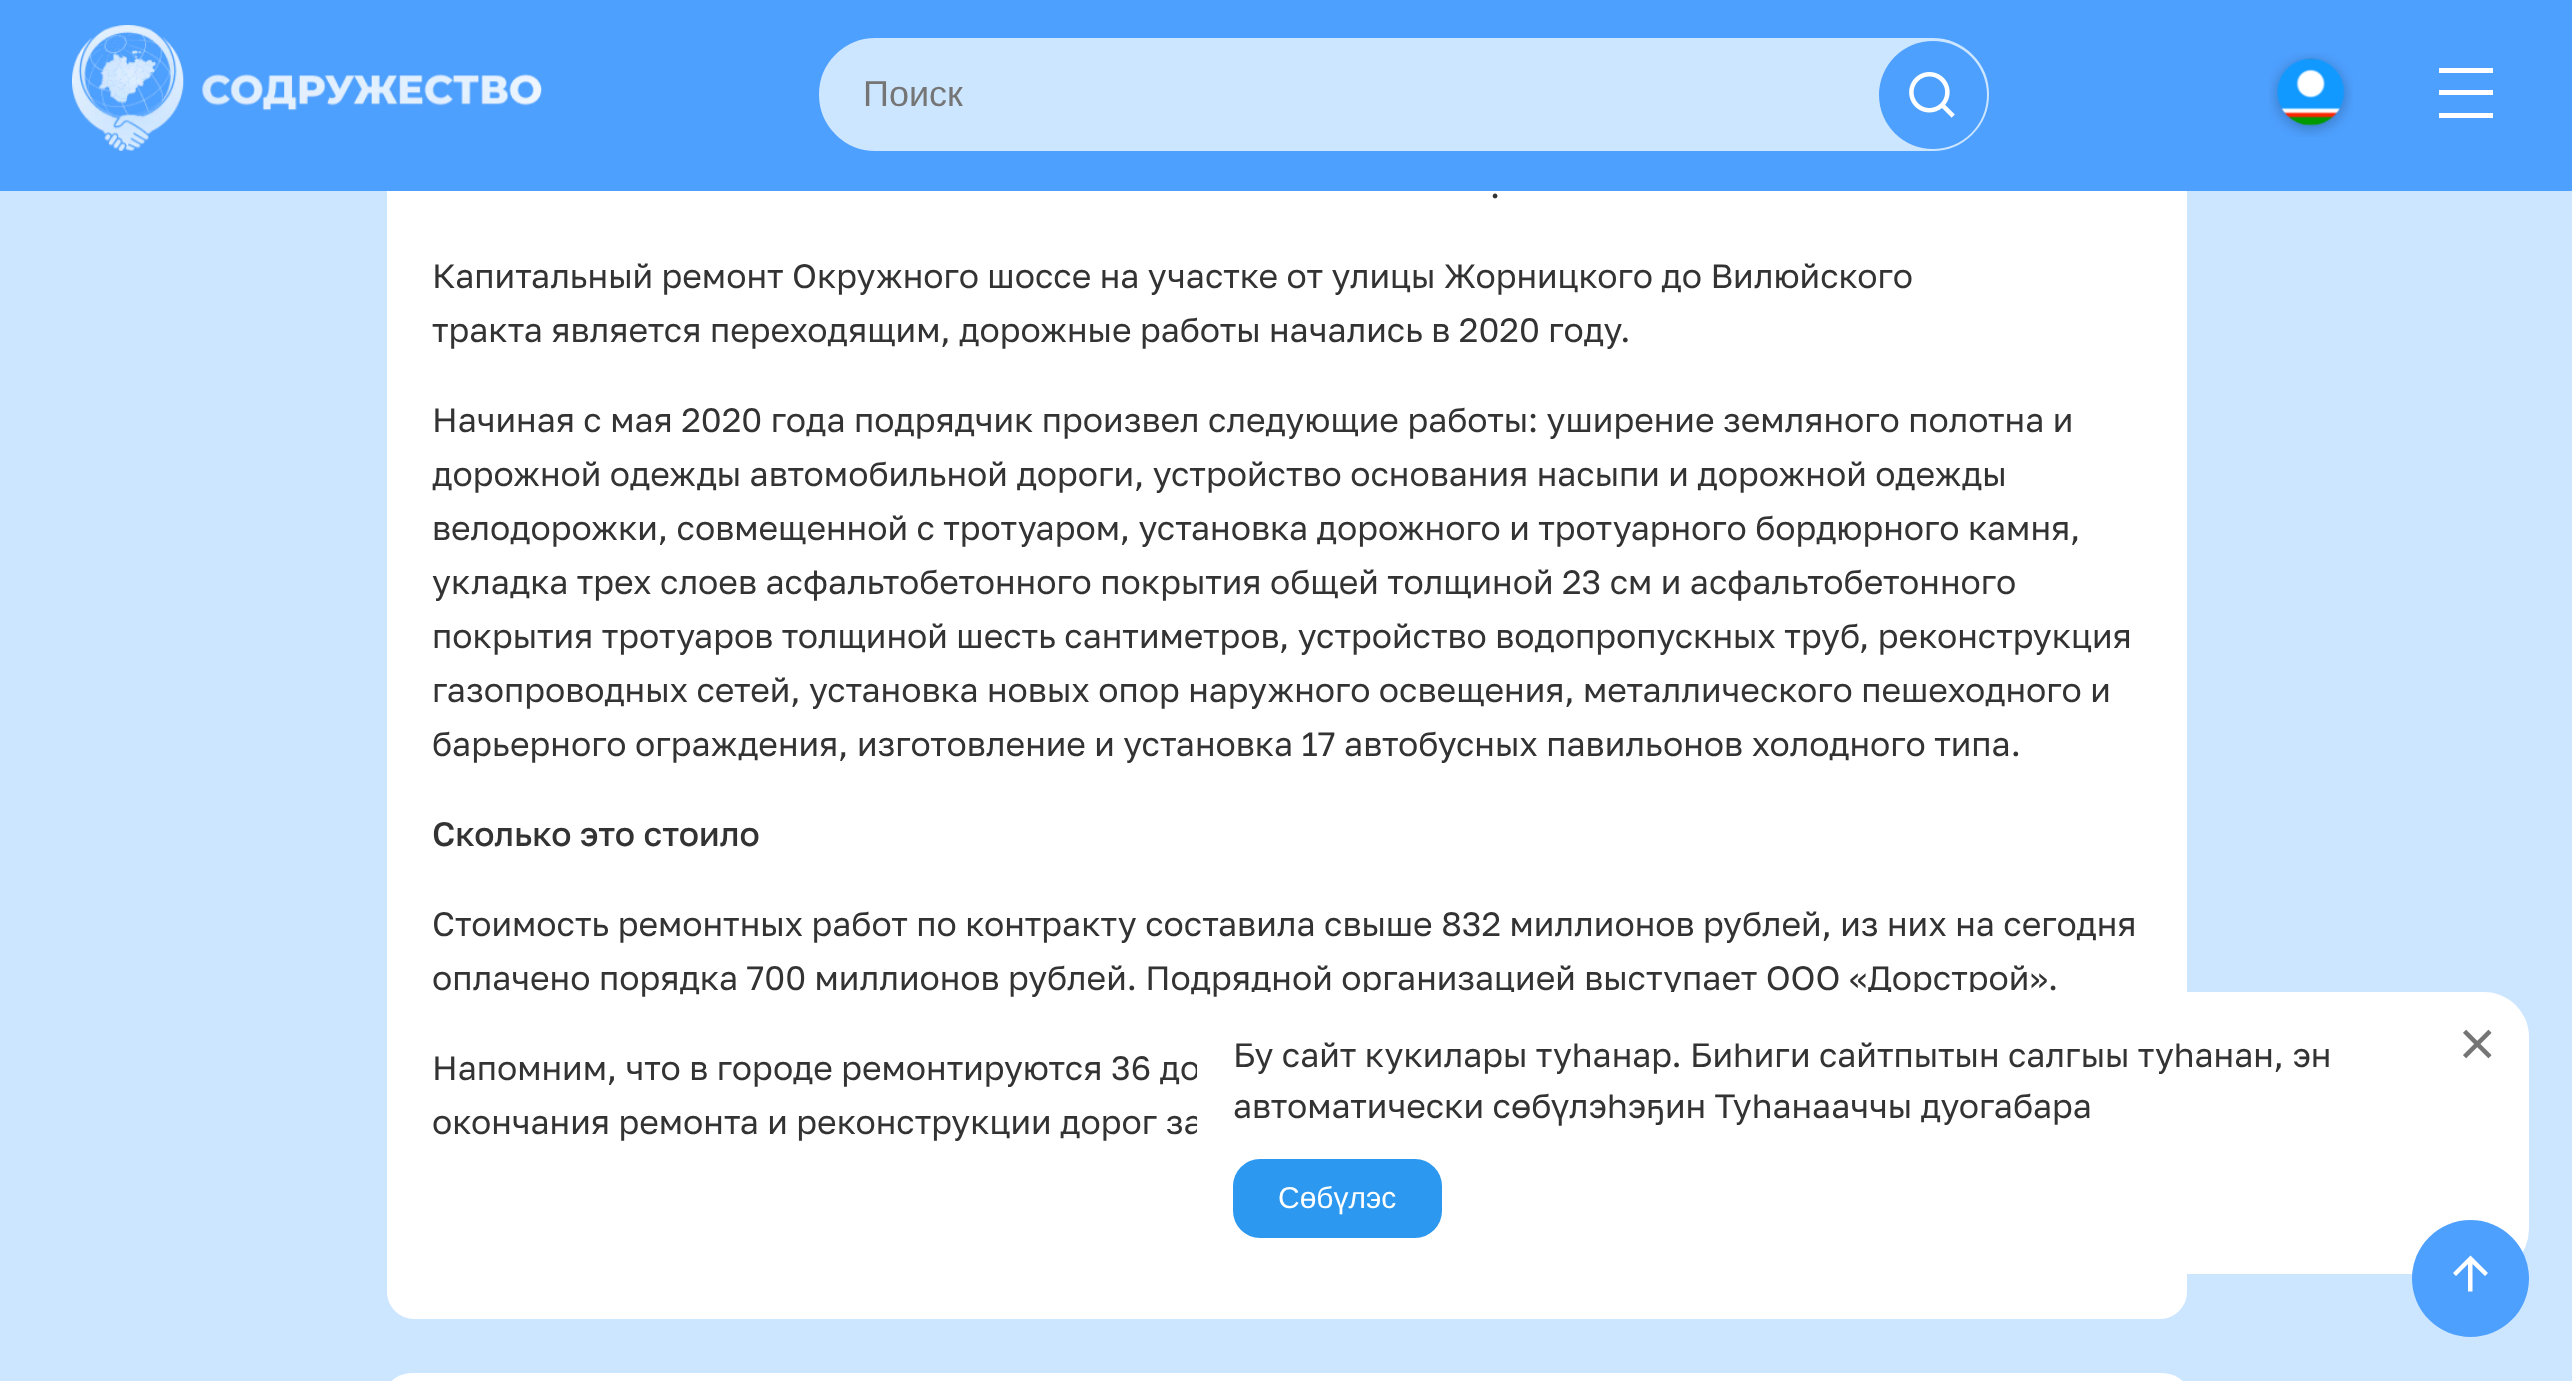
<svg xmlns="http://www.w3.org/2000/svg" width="2572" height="1381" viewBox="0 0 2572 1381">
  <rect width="100%" height="100%" fill="rgb(205,230,255)"/>
  <rect x="387" y="-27" width="1800" height="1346" rx="27" fill="rgb(255,255,255)"/>
  <rect x="0" y="0" width="2572" height="191" fill="rgb(78,160,255)"/>
  <image x="72" y="25" width="470" height="126" href="pic1.png"/>
  <rect x="818" y="37" width="1172" height="115" rx="57.5" fill="rgb(205,230,255)" stroke="rgb(78,160,255)" stroke-width="2"/>
  <text x="863" y="106" font-family="Liberation Sans" font-size="36" fill="rgb(117,117,117)">Поиск</text>
  <circle cx="1933" cy="95" r="54" fill="rgb(78,160,255)"/>
  <image x="1909" y="72" width="46" height="46" href="pic2.png"/>
  <image x="2269" y="53" width="84" height="84" href="pic3.png"/>
  <rect x="2439" y="68" width="54" height="5" fill="rgb(255,255,255)"/>
  <rect x="2439" y="90" width="54" height="5" fill="rgb(255,255,255)"/>
  <rect x="2439" y="113" width="54" height="5" fill="rgb(255,255,255)"/>
  <g font-family="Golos" font-size="33.75" fill="rgb(51,51,51)">
    <text x="1490" y="198">.</text>
    <text>
      <tspan x="432" y="288">Капитальный ремонт Окружного шоссе на участке от улицы Жорницкого до Вилюйского</tspan>
      <tspan x="432" y="342">тракта является переходящим, дорожные работы начались в 2020 году.</tspan>
    </text>
    <text>
      <tspan x="432" y="432">Начиная с мая 2020 года подрядчик произвел следующие работы: уширение земляного полотна и</tspan>
      <tspan x="432" y="486">дорожной одежды автомобильной дороги, устройство основания насыпи и дорожной одежды</tspan>
      <tspan x="432" y="540">велодорожки, совмещенной с тротуаром, установка дорожного и тротуарного бордюрного камня,</tspan>
      <tspan x="432" y="594">укладка трех слоев асфальтобетонного покрытия общей толщиной 23 см и асфальтобетонного</tspan>
      <tspan x="432" y="648">покрытия тротуаров толщиной шесть сантиметров, устройство водопропускных труб, реконструкция</tspan>
      <tspan x="432" y="702">газопроводных сетей, установка новых опор наружного освещения, металлического пешеходного и</tspan>
      <tspan x="432" y="756">барьерного ограждения, изготовление и установка 17 автобусных павильонов холодного типа.</tspan>
    </text>
  </g>
  <text x="432" y="846" font-family="Golos" font-size="33.75" font-weight="500" fill="rgb(51,51,51)">Сколько это стоило</text>
  <g font-family="Golos" font-size="33.75" fill="rgb(51,51,51)">
    <text>
      <tspan x="432" y="936">Стоимость ремонтных работ по контракту составила свыше 832 миллионов рублей, из них на сегодня</tspan>
      <tspan x="432" y="990">оплачено порядка 700 миллионов рублей. Подрядной организацией выступает ООО «Дорстрой».</tspan>
    </text>
    <text>
      <tspan x="432" y="1080">Напомним, что в городе ремонтируются 36 до</tspan>
      <tspan x="432" y="1134">окончания ремонта и реконструкции дорог за</tspan>
    </text>
  </g>
  <rect x="387" y="1373" width="1800" height="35" rx="27" fill="rgb(255,255,255)"/>
  <rect x="1197" y="992" width="1332" height="282" rx="45" fill="rgb(255,255,255)"/>
  <g font-family="Golos" font-size="33.75" fill="rgb(51,51,51)">
    <text>
      <tspan x="1233" y="1067">Бу сайт кукилары туһанар. Биһиги сайтпытын салгыы туһанан, эн</tspan>
      <tspan x="1233" y="1118">автоматически сөбүлэһэҕин Туһанааччы дуогабара</tspan>
    </text>
  </g>
  <image x="2463" y="1029" width="29" height="30" href="pic4.png"/>
  <rect x="1233" y="1159" width="209" height="79" rx="27" fill="rgb(44,152,240)"/>
  <text x="1278" y="1208" font-family="Liberation Sans" font-size="30" fill="rgb(255,255,255)">Сөбүлэс</text>
  <circle cx="2470.5" cy="1278.5" r="58.5" fill="rgb(78,160,255)"/>
  <path d="M2472.5 1264V1291.5H2468V1264L2456 1276L2453 1273L2470.5 1255.5L2488 1273L2485 1276Z" fill="rgb(255,255,255)"/>
</svg>
